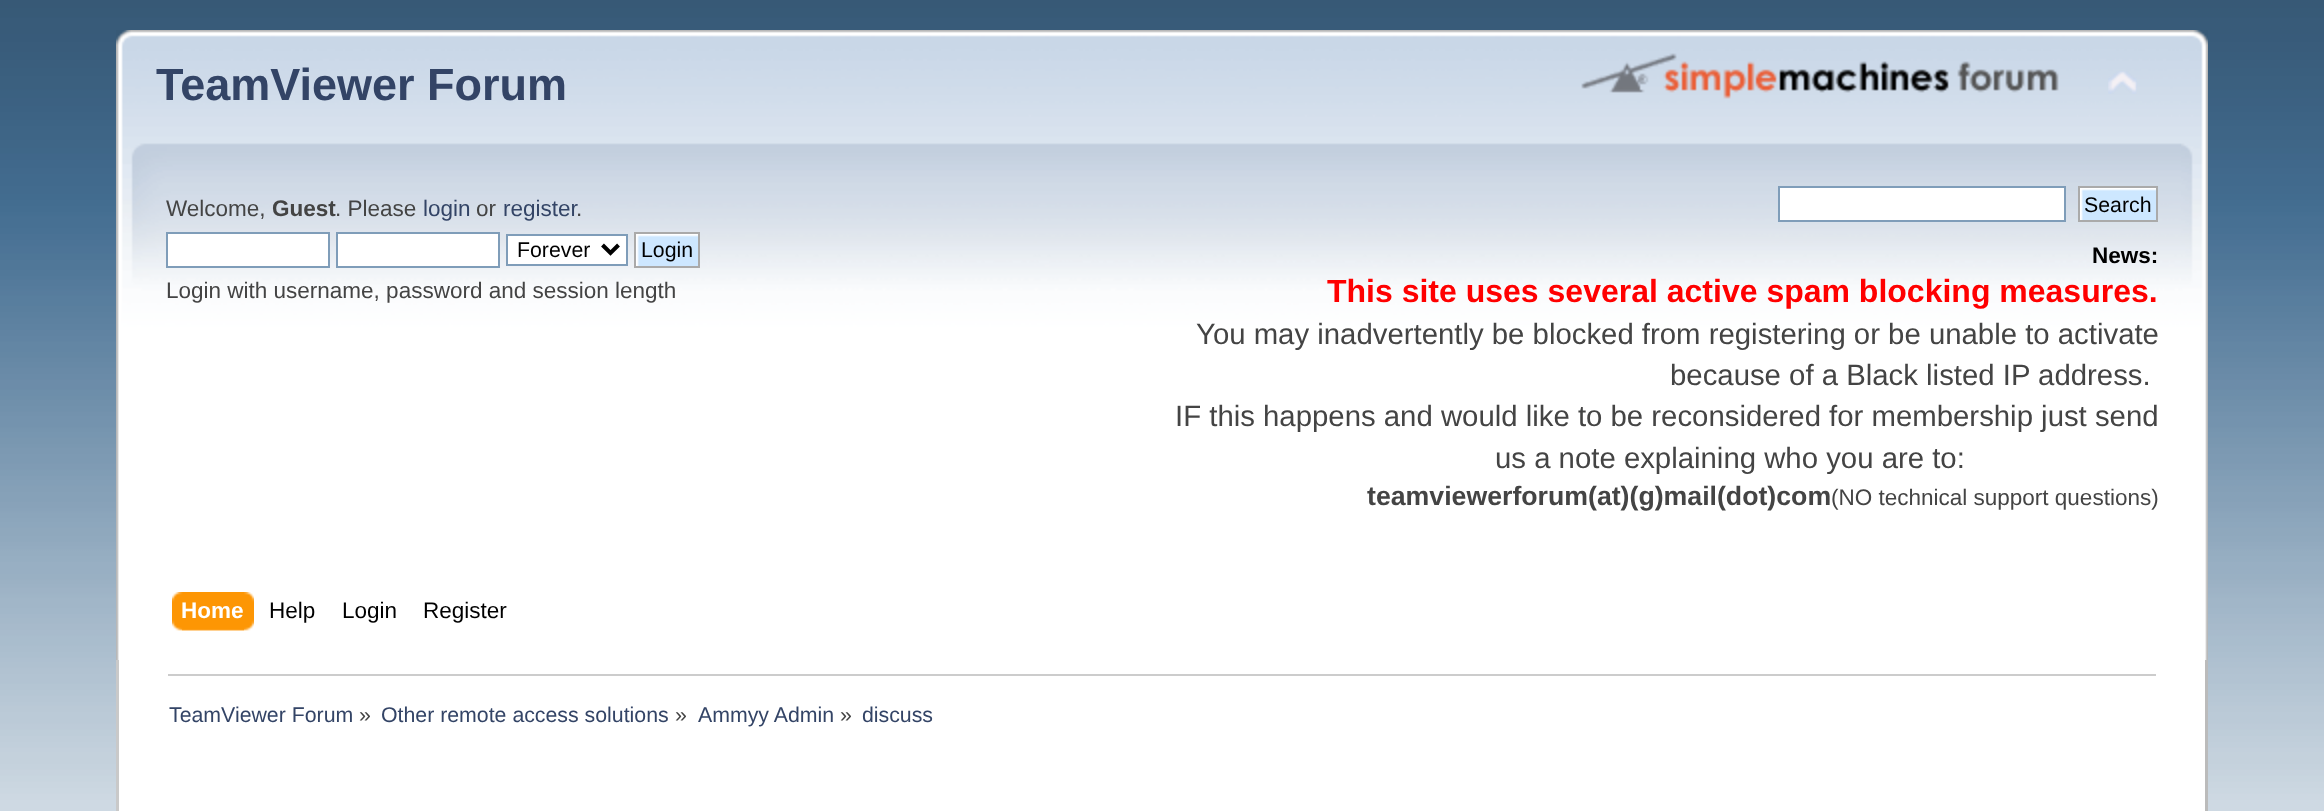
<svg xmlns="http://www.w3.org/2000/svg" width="2324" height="811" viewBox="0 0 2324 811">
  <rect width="100%" height="100%" fill="rgb(255,255,255)"/>
  <image x="0" y="0" width="2324" height="811" href="pic1.png"/>
  <image x="116" y="30" width="2065" height="630" href="pic2.png"/>
  <image x="2181" y="30" width="27" height="630" href="pic3.png"/>
  <text x="156" y="100" font-family="Liberation Sans" font-size="45" font-weight="bold" fill="rgb(51,68,102)">TeamViewer Forum</text>
  <image x="1581" y="53" width="478" height="46" href="pic4.png"/>
  <image x="2108" y="71" width="29" height="23" href="pic5.png"/>
  <text x="166" y="216" font-family="Liberation Sans" font-size="22.5" fill="rgb(68,68,68)">Welcome,</text>
  <text x="272" y="216" font-family="Liberation Sans" font-size="22.5" font-weight="bold" fill="rgb(68,68,68)">Guest</text>
  <text x="335" y="216" font-family="Liberation Sans" font-size="22.5" fill="rgb(68,68,68)">. Please</text>
  <text x="423" y="216" font-family="Liberation Sans" font-size="22.5" fill="rgb(51,68,102)">login</text>
  <text x="476" y="216" font-family="Liberation Sans" font-size="22.5" fill="rgb(68,68,68)">or</text>
  <text x="503" y="216" font-family="Liberation Sans" font-size="22.5" fill="rgb(51,68,102)">register</text>
  <text x="576" y="216" font-family="Liberation Sans" font-size="22.5" fill="rgb(68,68,68)">.</text>
  <rect x="167" y="233" width="162" height="34" fill="rgb(255,255,255)" stroke="rgb(127,157,185)" stroke-width="2"/>
  <rect x="337" y="233" width="162" height="34" fill="rgb(255,255,255)" stroke="rgb(127,157,185)" stroke-width="2"/>
  <rect x="507" y="235" width="120" height="30" fill="rgb(255,255,255)" stroke="rgb(127,157,185)" stroke-width="2"/>
  <path d="M602.5 245L610.5 253L618.5 245" fill="none" stroke="rgb(0,0,0)" stroke-width="4"/>
  <text x="517" y="257" font-family="Liberation Sans" font-size="21.3" fill="rgb(0,0,0)">Forever</text>
  <image x="636" y="234" width="62" height="32" href="pic6.png"/>
  <rect x="635" y="233" width="64" height="34" fill="none" stroke="rgb(170,170,170)" stroke-width="2"/>
  <text x="641" y="257" font-family="Liberation Sans" font-size="21.3" fill="rgb(0,0,0)">Login</text>
  <text x="166" y="298" font-family="Liberation Sans" font-size="22.5" fill="rgb(68,68,68)">Login with username, password and session length</text>
  <rect x="1779" y="187" width="286" height="34" fill="rgb(255,255,255)" stroke="rgb(127,157,185)" stroke-width="2"/>
  <image x="2080" y="188" width="76" height="32" href="pic7.png"/>
  <rect x="2079" y="187" width="78" height="34" fill="none" stroke="rgb(170,170,170)" stroke-width="2"/>
  <text x="2084" y="212" font-family="Liberation Sans" font-size="21.3" fill="rgb(0,0,0)">Search</text>
  <text x="2092" y="263" font-family="Liberation Sans" font-size="22.5" font-weight="bold" fill="rgb(0,0,0)">News:</text>
  <text x="1327" y="302" font-family="Liberation Sans" font-size="32" font-weight="bold" fill="rgb(255,0,0)">This site uses several active spam blocking measures.</text>
  <g font-family="Liberation Sans" font-size="29.35" fill="rgb(68,68,68)">
    <text x="1196" y="344">You may inadvertently be blocked from registering or be unable to activate</text>
    <text x="1670" y="385">because of a Black listed IP address.</text>
    <text x="1175" y="426">IF this happens and would like to be reconsidered for membership just send</text>
    <text x="1495" y="468">us a note explaining who you are to:</text>
  </g>
  <text x="1367" y="505" font-family="Liberation Sans" font-size="26.7" font-weight="bold" fill="rgb(68,68,68)">teamviewerforum(at)(g)mail(dot)com</text>
  <text x="1831" y="505" font-family="Liberation Sans" font-size="22.5" fill="rgb(68,68,68)">(NO technical support questions)</text>
  <image x="182" y="592" width="72" height="39" href="pic8.png"/>
  <image x="172" y="592" width="72" height="39" href="pic9.png"/>
  <text x="181" y="618" font-family="Liberation Sans" font-size="22.5" font-weight="bold" fill="rgb(255,255,255)">Home</text>
  <g font-family="Liberation Sans" font-size="22.5" fill="rgb(0,0,0)">
    <text x="269" y="618">Help</text>
    <text x="342" y="618">Login</text>
    <text x="423" y="618">Register</text>
  </g>
  <rect x="119" y="660" width="2086" height="151" fill="rgb(255,255,255)"/>
  <rect x="116" y="660" width="3" height="151" fill="rgb(201,201,201)"/>
  <rect x="2205" y="660" width="3" height="151" fill="rgb(187,187,187)"/>
  <rect x="168" y="674" width="1988" height="2" fill="rgb(204,204,204)"/>
  <text x="169" y="722" font-family="Liberation Sans" font-size="21.3" fill="rgb(51,68,102)">TeamViewer Forum</text>
  <text x="359" y="722" font-family="Liberation Sans" font-size="21.3" fill="rgb(68,68,68)">»</text>
  <text x="381" y="722" font-family="Liberation Sans" font-size="21.3" fill="rgb(51,68,102)">Other remote access solutions</text>
  <text x="675" y="722" font-family="Liberation Sans" font-size="21.3" fill="rgb(68,68,68)">»</text>
  <text x="698" y="722" font-family="Liberation Sans" font-size="21.3" fill="rgb(51,68,102)">Ammyy Admin</text>
  <text x="840" y="722" font-family="Liberation Sans" font-size="21.3" fill="rgb(68,68,68)">»</text>
  <text x="862" y="722" font-family="Liberation Sans" font-size="21.3" fill="rgb(51,68,102)">discuss</text>
</svg>
